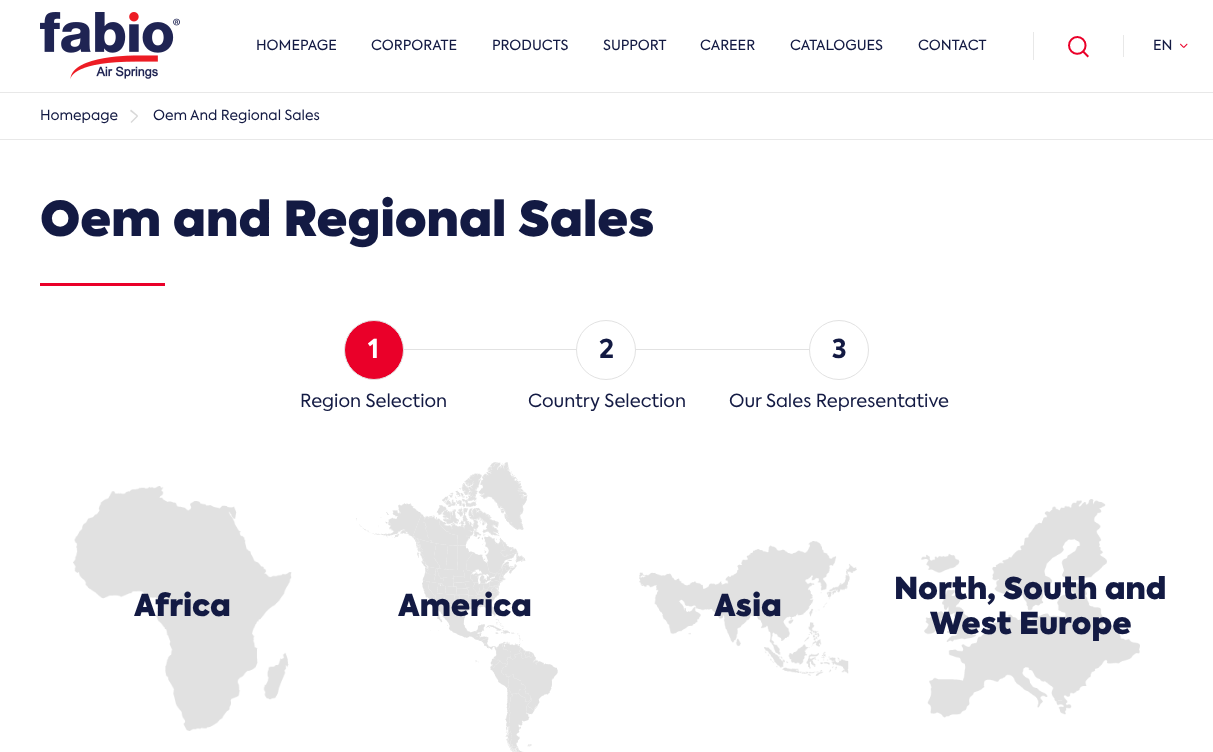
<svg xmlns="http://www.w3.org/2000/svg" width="1213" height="752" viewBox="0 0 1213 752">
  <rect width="100%" height="100%" fill="rgb(255,255,255)"/>
  <rect x="0" y="92" width="1213" height="1" fill="rgb(232,232,232)"/>
  <image x="40" y="12" width="140" height="67" href="pic1.png"/>
  <g font-family="'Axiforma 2'" font-size="14" fill="rgb(19,26,67)">
    <text x="256" y="50">HOMEPAGE</text>
    <text x="371" y="50">CORPORATE</text>
    <text x="492" y="50">PRODUCTS</text>
    <text x="603" y="50">SUPPORT</text>
    <text x="700" y="50">CAREER</text>
    <text x="790" y="50">CATALOGUES</text>
    <text x="918" y="50">CONTACT</text>
  </g>
  <rect x="1033" y="32" width="1" height="28" fill="rgb(232,232,232)"/>
  <image x="1068" y="36" width="21" height="22" href="pic2.png"/>
  <rect x="1123" y="35" width="1" height="22" fill="rgb(232,232,232)"/>
  <text x="1153" y="50" font-family="'Axiforma 2'" font-size="14" fill="rgb(19,26,67)">EN</text>
  <path d="M1180 44.5L1180.5 43.5L1184 47L1183.5 48Z" fill="rgb(234,0,41)"/>
  <path d="M1187 43.5L1187.5 44.5L1184 48L1183.5 47Z" fill="rgb(234,0,41)"/>
  <rect x="0" y="139" width="1213" height="1" fill="rgb(232,232,232)"/>
  <text x="40" y="120" font-family="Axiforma" font-size="14" fill="rgb(19,26,67)">Homepage</text>
  <path d="M131.5 123L130.5 122L137 115.5L138 116.5Z" fill="rgb(217,217,217)"/>
  <path d="M130 111L131 109.5L138 115.5L137 116.5Z" fill="rgb(217,217,217)"/>
  <text x="153" y="120" font-family="Axiforma" font-size="14" fill="rgb(19,26,67)">Oem And Regional Sales</text>
  <text x="40" y="236" font-family="Axiforma" font-size="48" font-weight="900" fill="rgb(19,26,67)">Oem and Regional Sales</text>
  <rect x="40" y="283" width="125" height="3" fill="rgb(234,0,41)"/>
  <rect x="403" y="349" width="407" height="1" fill="rgb(226,226,226)"/>
  <circle cx="374" cy="350" r="29.5" fill="rgb(234,0,41)" stroke="rgb(226,226,226)"/>
  <text x="368" y="358" font-family="Axiforma" font-size="26" font-weight="bold" fill="rgb(255,255,255)">1</text>
  <text x="300" y="407" font-family="Axiforma" font-size="18" fill="rgb(19,26,67)">Region Selection</text>
  <circle cx="606" cy="350" r="29.5" fill="rgb(255,255,255)" stroke="rgb(226,226,226)"/>
  <text x="599" y="358" font-family="Axiforma" font-size="26" font-weight="bold" fill="rgb(19,26,67)">2</text>
  <text x="528" y="407" font-family="Axiforma" font-size="18" fill="rgb(19,26,67)">Country Selection</text>
  <circle cx="839" cy="350" r="29.5" fill="rgb(255,255,255)" stroke="rgb(226,226,226)"/>
  <text x="832" y="358" font-family="Axiforma" font-size="26" font-weight="bold" fill="rgb(19,26,67)">3</text>
  <text x="729" y="407" font-family="Axiforma" font-size="18" fill="rgb(19,26,67)">Our Sales Representative</text>
  <image x="73" y="486" width="219" height="245" href="pic3.png"/>
  <text x="134" y="616" font-family="Axiforma" font-size="30" font-weight="900" fill="rgb(19,26,67)">Africa</text>
  <image x="356" y="462" width="202" height="290" href="pic4.png"/>
  <text x="398" y="616" font-family="Axiforma" font-size="30" font-weight="900" fill="rgb(19,26,67)">America</text>
  <image x="639" y="541" width="218" height="135" href="pic5.png"/>
  <text x="714" y="616" font-family="Axiforma" font-size="30" font-weight="900" fill="rgb(19,26,67)">Asia</text>
  <image x="921" y="499" width="219" height="219" href="pic6.png"/>
  <g font-family="Axiforma" font-size="30" font-weight="900" fill="rgb(19,26,67)">
    <text x="894" y="599">North, South and</text>
    <text x="930" y="634">West Europe</text>
  </g>
</svg>
